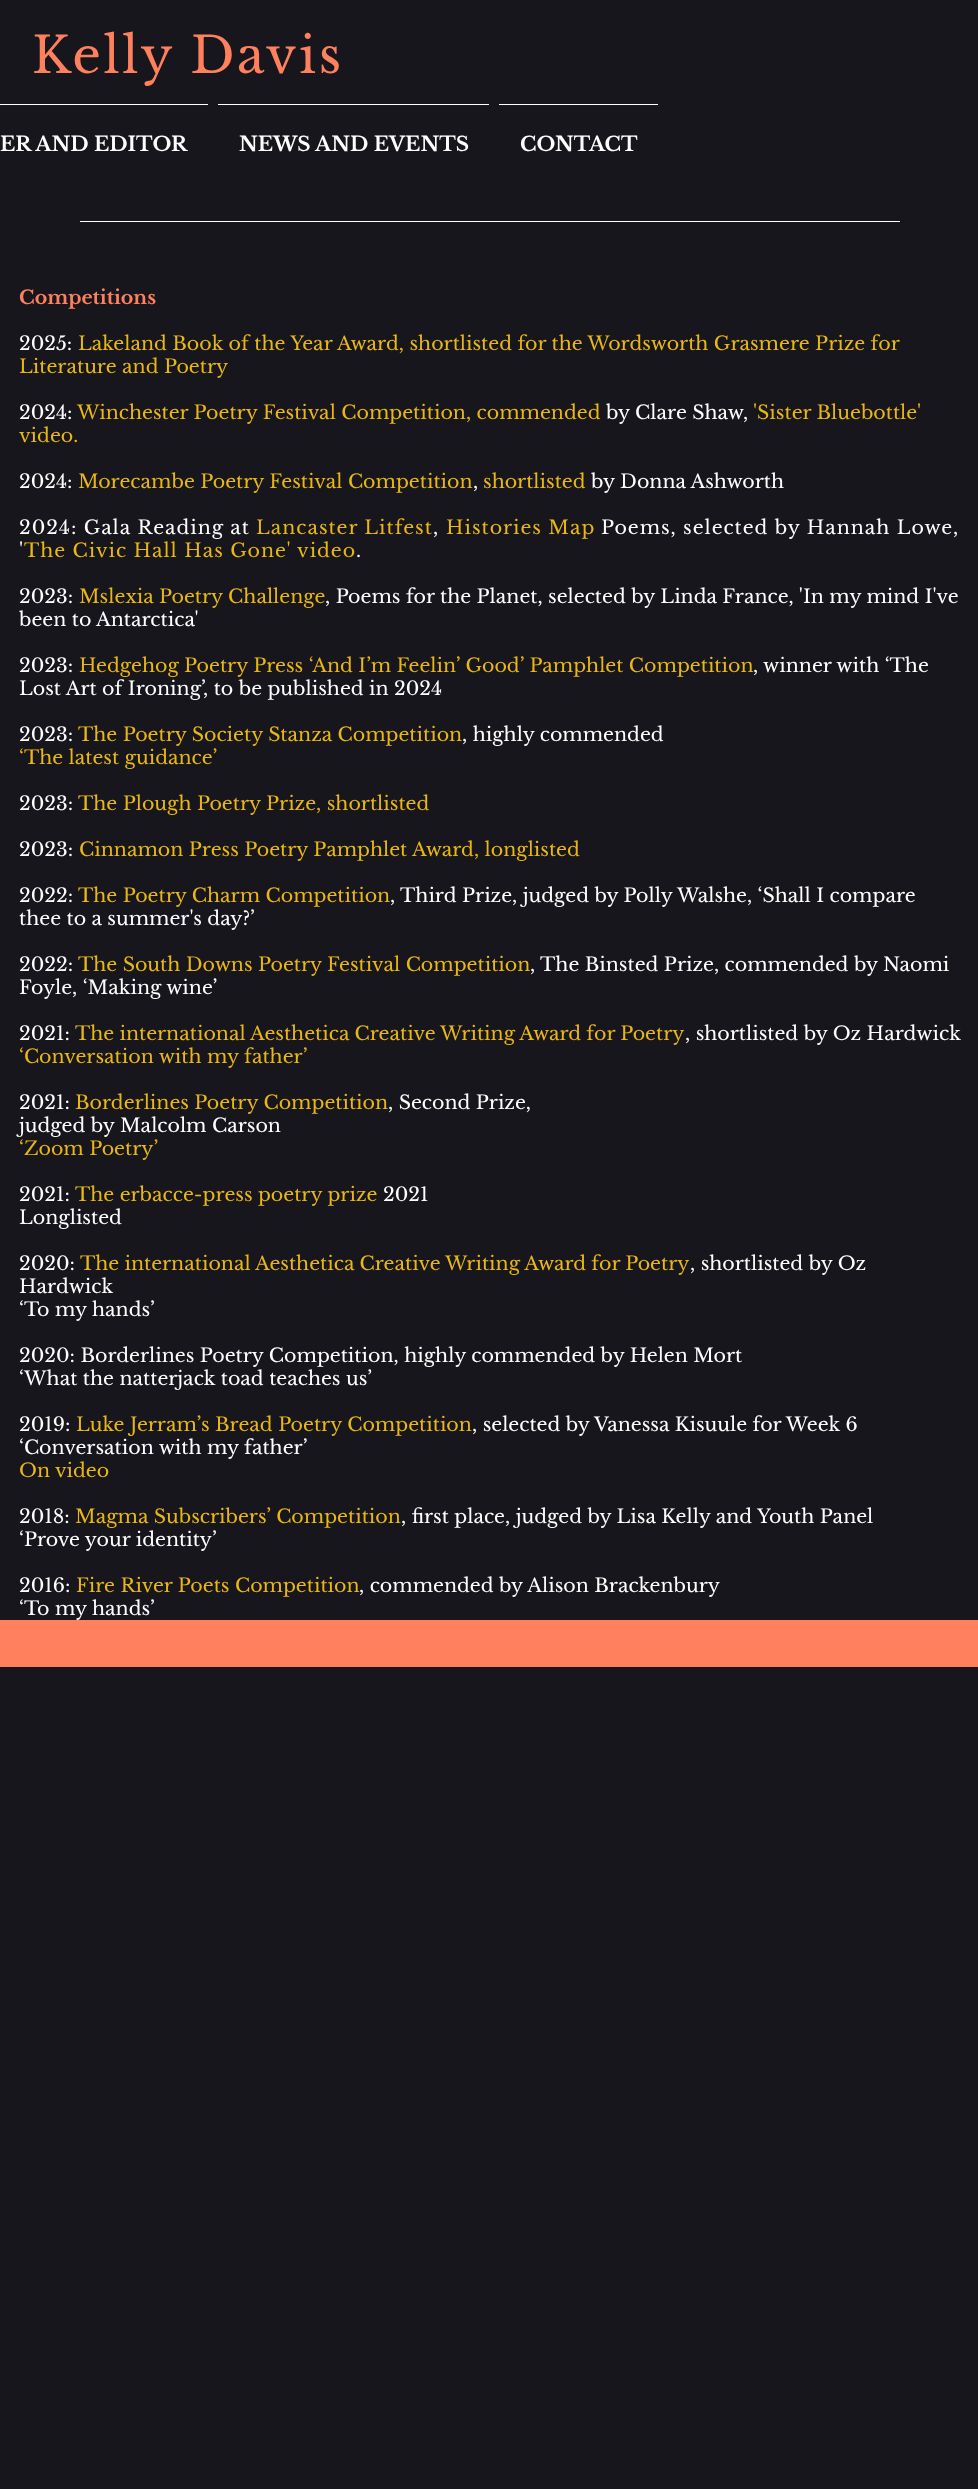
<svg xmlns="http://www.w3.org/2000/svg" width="978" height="2489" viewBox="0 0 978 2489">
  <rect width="100%" height="100%" fill="rgb(23,22,28)"/>
  <text x="32" y="73" font-family="Libre Baskerville" font-size="50" letter-spacing="2.5" fill="rgb(254,128,93)">Kelly Davis</text>
  <rect x="0" y="104" width="208" height="1" fill="rgb(255,255,255)"/>
  <text x="0" y="151" font-family="Libre Baskerville" font-size="20" font-weight="bold" fill="rgb(255,255,255)">ER AND EDITOR</text>
  <rect x="218" y="104" width="271" height="1" fill="rgb(255,255,255)"/>
  <text x="239" y="151" font-family="Libre Baskerville" font-size="20" font-weight="bold" fill="rgb(255,255,255)">NEWS AND EVENTS</text>
  <rect x="499" y="104" width="159" height="1" fill="rgb(255,255,255)"/>
  <text x="520" y="151" font-family="Libre Baskerville" font-size="20" font-weight="bold" fill="rgb(255,255,255)">CONTACT</text>
  <rect x="80" y="221" width="820" height="1" fill="rgb(255,255,255)"/>
  <text x="19" y="304" font-family="Libre Baskerville" font-size="19" font-weight="bold" fill="rgb(254,128,93)">Competitions</text>
  <text x="19" y="350" font-family="Libre Baskerville" font-size="19" fill="rgb(255,255,255)">2025:</text>
  <g font-family="Libre Baskerville" font-size="19" fill="rgb(232,183,21)">
    <text x="78" y="350">Lakeland Book of the Year Award, shortlisted for the Wordsworth Grasmere Prize for</text>
    <text x="19" y="373">Literature and Poetry</text>
  </g>
  <text x="19" y="419" font-family="Libre Baskerville" font-size="19" fill="rgb(255,255,255)">2024:</text>
  <text x="77" y="419" font-family="Libre Baskerville" font-size="19" fill="rgb(232,183,21)">Winchester Poetry Festival Competition, commended</text>
  <text x="606" y="419" font-family="Libre Baskerville" font-size="19" fill="rgb(255,255,255)">by Clare Shaw,</text>
  <g font-family="Libre Baskerville" font-size="19" fill="rgb(232,183,21)">
    <text x="753" y="419">'Sister Bluebottle'</text>
    <text x="19" y="442">video.</text>
  </g>
  <text x="19" y="488" font-family="Libre Baskerville" font-size="19" fill="rgb(255,255,255)">2024:</text>
  <text x="78" y="488" font-family="Libre Baskerville" font-size="19" fill="rgb(232,183,21)">Morecambe Poetry Festival Competition</text>
  <text x="473" y="488" font-family="Libre Baskerville" font-size="19" fill="rgb(255,255,255)">,</text>
  <text x="483" y="488" font-family="Libre Baskerville" font-size="19" fill="rgb(232,183,21)">shortlisted</text>
  <text x="591" y="488" font-family="Libre Baskerville" font-size="19" fill="rgb(255,255,255)">by Donna Ashworth</text>
  <text x="19" y="534" font-family="Libre Baskerville" font-size="19" letter-spacing="0.95" fill="rgb(255,255,255)">2024: Gala Reading at</text>
  <text x="256" y="534" font-family="Libre Baskerville" font-size="19" letter-spacing="0.95" fill="rgb(232,183,21)">Lancaster Litfest</text>
  <text x="433" y="534" font-family="Libre Baskerville" font-size="19" letter-spacing="0.95" fill="rgb(255,255,255)">,</text>
  <text x="446" y="534" font-family="Libre Baskerville" font-size="19" letter-spacing="0.95" fill="rgb(232,183,21)">Histories Map</text>
  <g font-family="Libre Baskerville" font-size="19" letter-spacing="0.95" fill="rgb(255,255,255)">
    <text x="601" y="534">Poems, selected by Hannah Lowe,</text>
    <text x="19" y="557">'</text>
  </g>
  <text x="24" y="557" font-family="Libre Baskerville" font-size="19" letter-spacing="0.95" fill="rgb(232,183,21)">The Civic Hall Has Gone' video</text>
  <text x="356" y="557" font-family="Libre Baskerville" font-size="19" letter-spacing="0.95" fill="rgb(255,255,255)">.</text>
  <text x="19" y="603" font-family="Libre Baskerville" font-size="19" fill="rgb(255,255,255)">2023:</text>
  <text x="79" y="603" font-family="Libre Baskerville" font-size="19" fill="rgb(232,183,21)">Mslexia Poetry Challenge</text>
  <g font-family="Libre Baskerville" font-size="19" fill="rgb(255,255,255)">
    <text x="325" y="603">, Poems for the Planet, selected by Linda France, 'In my mind I've</text>
    <text x="19" y="626">been to Antarctica'</text>
    <text x="19" y="672">2023:</text>
  </g>
  <text x="79" y="672" font-family="Libre Baskerville" font-size="19" fill="rgb(232,183,21)">Hedgehog Poetry Press ‘And I’m Feelin’ Good’ Pamphlet Competition</text>
  <g font-family="Libre Baskerville" font-size="19" fill="rgb(255,255,255)">
    <text x="753" y="672">, winner with ‘The</text>
    <text x="19" y="695">Lost Art of Ironing’</text>
    <text x="203" y="695">, to be published in 2024</text>
    <text x="19" y="741">2023:</text>
  </g>
  <text x="78" y="741" font-family="Libre Baskerville" font-size="19" fill="rgb(232,183,21)">The Poetry Society Stanza Competition</text>
  <text x="462" y="741" font-family="Libre Baskerville" font-size="19" fill="rgb(255,255,255)">, highly commended</text>
  <text x="19" y="764" font-family="Libre Baskerville" font-size="19" fill="rgb(232,183,21)">‘The latest guidance’</text>
  <text x="19" y="810" font-family="Libre Baskerville" font-size="19" fill="rgb(255,255,255)">2023:</text>
  <text x="78" y="810" font-family="Libre Baskerville" font-size="19" fill="rgb(232,183,21)">The Plough Poetry Prize, shortlisted</text>
  <text x="19" y="856" font-family="Libre Baskerville" font-size="19" fill="rgb(255,255,255)">2023:</text>
  <text x="79" y="856" font-family="Libre Baskerville" font-size="19" fill="rgb(232,183,21)">Cinnamon Press Poetry Pamphlet Award, longlisted</text>
  <text x="19" y="902" font-family="Libre Baskerville" font-size="19" fill="rgb(255,255,255)">2022:</text>
  <text x="78" y="902" font-family="Libre Baskerville" font-size="19" fill="rgb(232,183,21)">The Poetry Charm Competition</text>
  <g font-family="Libre Baskerville" font-size="19" fill="rgb(255,255,255)">
    <text x="390" y="902">, Third Prize, judged by Polly Walshe, ‘Shall I compare</text>
    <text x="19" y="925">thee to a summer's day?’</text>
    <text x="19" y="971">2022:</text>
  </g>
  <text x="78" y="971" font-family="Libre Baskerville" font-size="19" fill="rgb(232,183,21)">The South Downs Poetry Festival Competition</text>
  <g font-family="Libre Baskerville" font-size="19" fill="rgb(255,255,255)">
    <text x="530" y="971">, The Binsted Prize, commended by Naomi</text>
    <text x="19" y="994">Foyle, ‘Making wine’</text>
    <text x="19" y="1040">2021:</text>
  </g>
  <text x="75" y="1040" word-spacing="-0.25" font-family="Libre Baskerville" font-size="19" fill="rgb(232,183,21)">The international Aesthetica Creative Writing Award for Poetry</text>
  <text x="685" y="1040" font-family="Libre Baskerville" font-size="19" fill="rgb(255,255,255)">, shortlisted by Oz Hardwick</text>
  <text x="19" y="1063" font-family="Libre Baskerville" font-size="19" fill="rgb(232,183,21)">‘Conversation with my father’</text>
  <text x="19" y="1109" font-family="Libre Baskerville" font-size="19" fill="rgb(255,255,255)">2021:</text>
  <text x="75" y="1109" font-family="Libre Baskerville" font-size="19" fill="rgb(232,183,21)">Borderlines Poetry Competition</text>
  <g font-family="Libre Baskerville" font-size="19" fill="rgb(255,255,255)">
    <text x="388" y="1109">, Second Prize,</text>
    <text x="19" y="1132">judged by Malcolm Carson</text>
  </g>
  <text x="19" y="1155" font-family="Libre Baskerville" font-size="19" fill="rgb(232,183,21)">‘Zoom Poetry’</text>
  <text x="19" y="1201" font-family="Libre Baskerville" font-size="19" fill="rgb(255,255,255)">2021:</text>
  <text x="75" y="1201" font-family="Libre Baskerville" font-size="19" fill="rgb(232,183,21)">The erbacce-press poetry prize</text>
  <g font-family="Libre Baskerville" font-size="19" fill="rgb(255,255,255)">
    <text x="383" y="1201">2021</text>
    <text x="19" y="1224">Longlisted</text>
    <text x="19" y="1270">2020:</text>
  </g>
  <text x="80" y="1270" word-spacing="-0.25" font-family="Libre Baskerville" font-size="19" fill="rgb(232,183,21)">The international Aesthetica Creative Writing Award for Poetry</text>
  <g font-family="Libre Baskerville" font-size="19" fill="rgb(255,255,255)">
    <text x="690" y="1270">, shortlisted by Oz</text>
    <text>
      <tspan x="19" y="1293">Hardwick</tspan>
      <tspan x="19" y="1316">‘To my hands’</tspan>
    </text>
    <text>
      <tspan x="19" y="1362">2020: Borderlines Poetry Competition, highly commended by Helen Mort</tspan>
      <tspan x="19" y="1385">‘What the natterjack toad teaches us’</tspan>
    </text>
    <text x="19" y="1431">2019:</text>
  </g>
  <text x="76" y="1431" font-family="Libre Baskerville" font-size="19" fill="rgb(232,183,21)">Luke Jerram’s Bread Poetry Competition</text>
  <g font-family="Libre Baskerville" font-size="19" fill="rgb(255,255,255)">
    <text x="472" y="1431">, selected by Vanessa Kisuule for Week 6</text>
    <text x="19" y="1454">‘Conversation with my father’</text>
  </g>
  <text x="19" y="1477" font-family="Libre Baskerville" font-size="19" fill="rgb(232,183,21)">On video</text>
  <text x="19" y="1523" font-family="Libre Baskerville" font-size="19" fill="rgb(255,255,255)">2018:</text>
  <text x="75" y="1523" font-family="Libre Baskerville" font-size="19" fill="rgb(232,183,21)">Magma Subscribers’ Competition</text>
  <g font-family="Libre Baskerville" font-size="19" fill="rgb(255,255,255)">
    <text x="401" y="1523">, first place, judged by Lisa Kelly and Youth Panel</text>
    <text x="19" y="1546">‘Prove your identity’</text>
    <text x="19" y="1592">2016:</text>
  </g>
  <text x="76" y="1592" font-family="Libre Baskerville" font-size="19" fill="rgb(232,183,21)">Fire River Poets Competition</text>
  <g font-family="Libre Baskerville" font-size="19" fill="rgb(255,255,255)">
    <text x="359" y="1592">, commended by Alison Brackenbury</text>
    <text x="19" y="1615">‘To my hands’</text>
  </g>
  <rect x="0" y="1620" width="978" height="47" fill="rgb(254,128,93)"/>
</svg>
